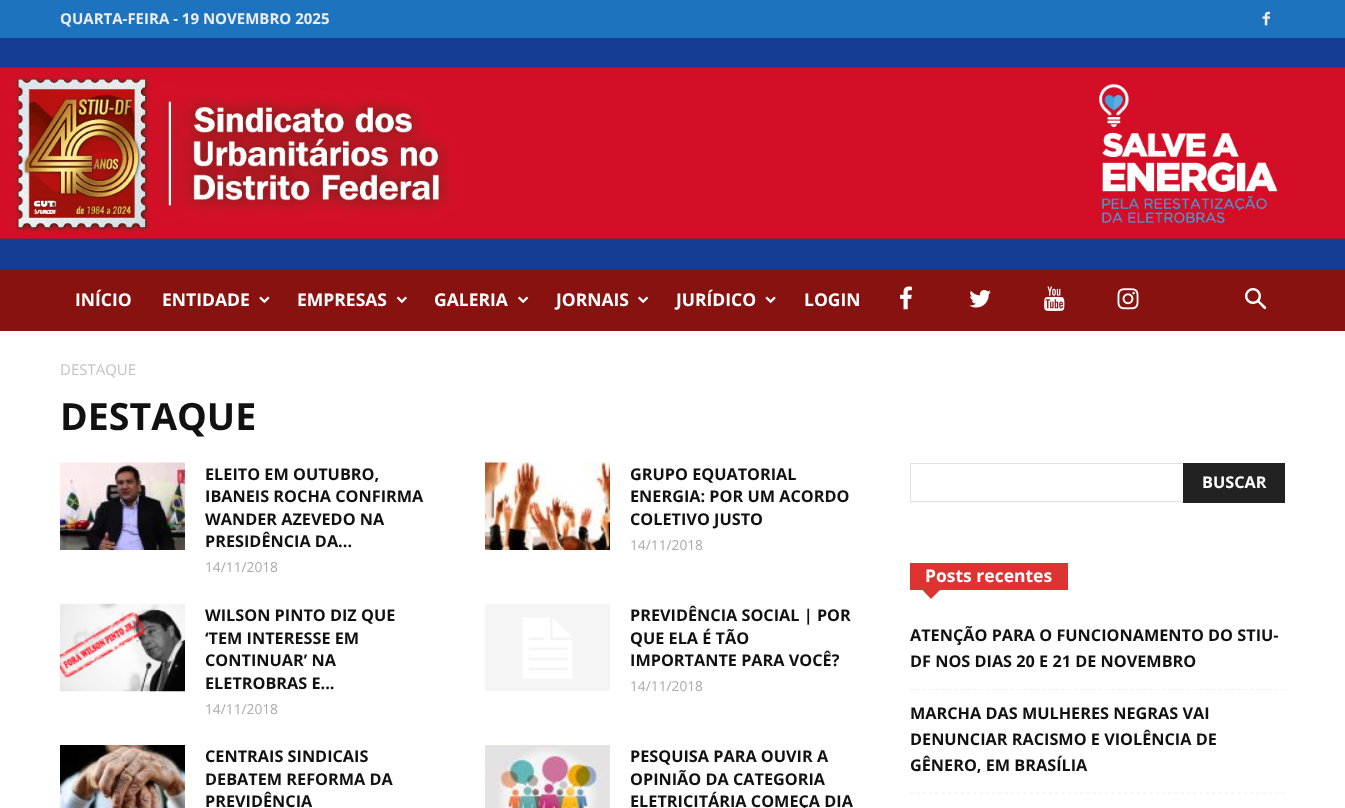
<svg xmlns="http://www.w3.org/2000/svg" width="1345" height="808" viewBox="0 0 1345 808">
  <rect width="100%" height="100%" fill="rgb(255,255,255)"/>
  <rect x="0" y="0" width="1345" height="38" fill="rgb(30,115,190)"/>
  <text x="60" y="24" font-family="Open Sans" font-size="15" font-weight="bold" fill="rgb(237,237,237)">QUARTA-FEIRA - 19 NOVEMBRO 2025</text>
  <image x="1262" y="11" width="8" height="15" href="pic1.png"/>
  <rect x="0" y="38" width="1345" height="231" fill="rgb(20,62,145)"/>
  <image x="0" y="67" width="1345" height="172" href="pic2.png"/>
  <rect x="0" y="269" width="1345" height="62" fill="rgb(135,18,16)"/>
  <g font-family="Open Sans" font-size="17.5" font-weight="bold" fill="rgb(255,255,255)">
    <text x="75" y="306">INÍCIO</text>
    <text x="162" y="306">ENTIDADE</text>
  </g>
  <image x="259" y="296" width="11" height="8" href="pic3.png"/>
  <text x="297" y="306" font-family="Open Sans" font-size="17.5" font-weight="bold" fill="rgb(255,255,255)">EMPRESAS</text>
  <image x="396" y="296" width="11" height="8" href="pic4.png"/>
  <text x="434" y="306" font-family="Open Sans" font-size="17.5" font-weight="bold" fill="rgb(255,255,255)">GALERIA</text>
  <image x="518" y="296" width="11" height="8" href="pic5.png"/>
  <text x="556" y="306" font-family="Open Sans" font-size="17.5" font-weight="bold" fill="rgb(255,255,255)">JORNAIS</text>
  <image x="638" y="296" width="11" height="8" href="pic5.png"/>
  <text x="676" y="306" font-family="Open Sans" font-size="17.5" font-weight="bold" fill="rgb(255,255,255)">JURÍDICO</text>
  <image x="765" y="296" width="11" height="8" href="pic6.png"/>
  <text x="804" y="306" font-family="Open Sans" font-size="17.5" font-weight="bold" fill="rgb(255,255,255)">LOGIN</text>
  <image x="900" y="286" width="12" height="24" href="pic7.png"/>
  <image x="969" y="290" width="22" height="18" href="pic8.png"/>
  <image x="1044" y="286" width="21" height="25" href="pic9.png"/>
  <image x="1117" y="288" width="22" height="22" href="pic10.png"/>
  <image x="1245" y="288" width="22" height="22" href="pic11.png"/>
  <text x="60" y="375" font-family="Open Sans" font-size="15" fill="rgb(195,195,195)">DESTAQUE</text>
  <text x="60" y="430" font-family="Open Sans" font-size="37.5" font-weight="bold" fill="rgb(17,17,17)">DESTAQUE</text>
  <image x="60" y="462" width="125" height="88" href="pic12.png"/>
  <g font-family="Open Sans" font-size="16.25" font-weight="bold" fill="rgb(17,17,17)">
    <text>
      <tspan x="205" y="480">ELEITO EM OUTUBRO,</tspan>
      <tspan x="205" y="502">IBANEIS ROCHA CONFIRMA</tspan>
      <tspan x="205" y="525">WANDER AZEVEDO NA</tspan>
      <tspan x="205" y="547">PRESIDÊNCIA DA...</tspan>
    </text>
  </g>
  <text x="205" y="572" font-family="Open Sans" font-size="13.75" fill="rgb(170,170,170)">14/11/2018</text>
  <image x="485" y="462" width="125" height="88" href="pic13.png"/>
  <g font-family="Open Sans" font-size="16.25" font-weight="bold" fill="rgb(17,17,17)">
    <text>
      <tspan x="630" y="480">GRUPO EQUATORIAL</tspan>
      <tspan x="630" y="502">ENERGIA: POR UM ACORDO</tspan>
      <tspan x="630" y="525">COLETIVO JUSTO</tspan>
    </text>
  </g>
  <text x="630" y="550" font-family="Open Sans" font-size="13.75" fill="rgb(170,170,170)">14/11/2018</text>
  <image x="60" y="603" width="125" height="89" href="pic14.png"/>
  <g font-family="Open Sans" font-size="16.25" font-weight="bold" fill="rgb(17,17,17)">
    <text>
      <tspan x="205" y="621">WILSON PINTO DIZ QUE</tspan>
      <tspan x="205" y="644">‘TEM INTERESSE EM</tspan>
      <tspan x="205" y="666">CONTINUAR’ NA</tspan>
      <tspan x="205" y="689">ELETROBRAS E...</tspan>
    </text>
  </g>
  <text x="205" y="714" font-family="Open Sans" font-size="13.75" fill="rgb(170,170,170)">14/11/2018</text>
  <image x="485" y="604" width="125" height="87" href="pic15.png"/>
  <g font-family="Open Sans" font-size="16.25" font-weight="bold" fill="rgb(17,17,17)">
    <text>
      <tspan x="630" y="621">PREVIDÊNCIA SOCIAL | POR</tspan>
      <tspan x="630" y="644">QUE ELA É TÃO</tspan>
      <tspan x="630" y="666">IMPORTANTE PARA VOCÊ?</tspan>
    </text>
  </g>
  <text x="630" y="691" font-family="Open Sans" font-size="13.75" fill="rgb(170,170,170)">14/11/2018</text>
  <image x="60" y="745" width="125" height="63" href="pic16.png"/>
  <g font-family="Open Sans" font-size="16.25" font-weight="bold" fill="rgb(17,17,17)">
    <text>
      <tspan x="205" y="762">CENTRAIS SINDICAIS</tspan>
      <tspan x="205" y="785">DEBATEM REFORMA DA</tspan>
      <tspan x="205" y="807">PREVIDÊNCIA</tspan>
    </text>
  </g>
  <image x="485" y="745" width="125" height="63" href="pic17.png"/>
  <g font-family="Open Sans" font-size="16.25" font-weight="bold" fill="rgb(17,17,17)">
    <text>
      <tspan x="630" y="762">PESQUISA PARA OUVIR A</tspan>
      <tspan x="630" y="785">OPINIÃO DA CATEGORIA</tspan>
      <tspan x="630" y="807">ELETRICITÁRIA COMEÇA DIA</tspan>
    </text>
  </g>
  <rect x="910" y="463" width="273" height="1" fill="rgb(225,225,225)"/>
  <rect x="910" y="501" width="273" height="1" fill="rgb(225,225,225)"/>
  <rect x="910" y="463" width="1" height="40" fill="rgb(225,225,225)"/>
  <rect x="1183" y="463" width="102" height="40" fill="rgb(34,34,34)"/>
  <text x="1202" y="488" font-family="Open Sans" font-size="16.25" font-weight="bold" fill="rgb(255,255,255)">BUSCAR</text>
  <rect x="910" y="563" width="158" height="27" fill="rgb(221,51,51)"/>
  <text x="925" y="582" font-family="Open Sans" font-size="17.5" font-weight="bold" fill="rgb(255,255,255)">Posts recentes</text>
  <path d="M922.5 590H940L931 599Z" fill="rgb(221,51,51)"/>
  <path d="M910 689.5H1285" fill="none" stroke="rgb(241,241,241)" stroke-width="1.2" stroke-dasharray="3.75 2.54"/>
  <g font-family="Open Sans" font-size="16.25" font-weight="bold" fill="rgb(17,17,17)">
    <text>
      <tspan x="910" y="641">ATENÇÃO PARA O FUNCIONAMENTO DO STIU-</tspan>
      <tspan x="910" y="667">DF NOS DIAS 20 E 21 DE NOVEMBRO</tspan>
    </text>
  </g>
  <path d="M910 793H1285" fill="none" stroke="rgb(241,241,241)" stroke-width="1.2" stroke-dasharray="3.75 2.54"/>
  <g font-family="Open Sans" font-size="16.25" font-weight="bold" fill="rgb(17,17,17)">
    <text>
      <tspan x="910" y="719">MARCHA DAS MULHERES NEGRAS VAI</tspan>
      <tspan x="910" y="745">DENUNCIAR RACISMO E VIOLÊNCIA DE</tspan>
      <tspan x="910" y="771">GÊNERO, EM BRASÍLIA</tspan>
    </text>
  </g>
</svg>
